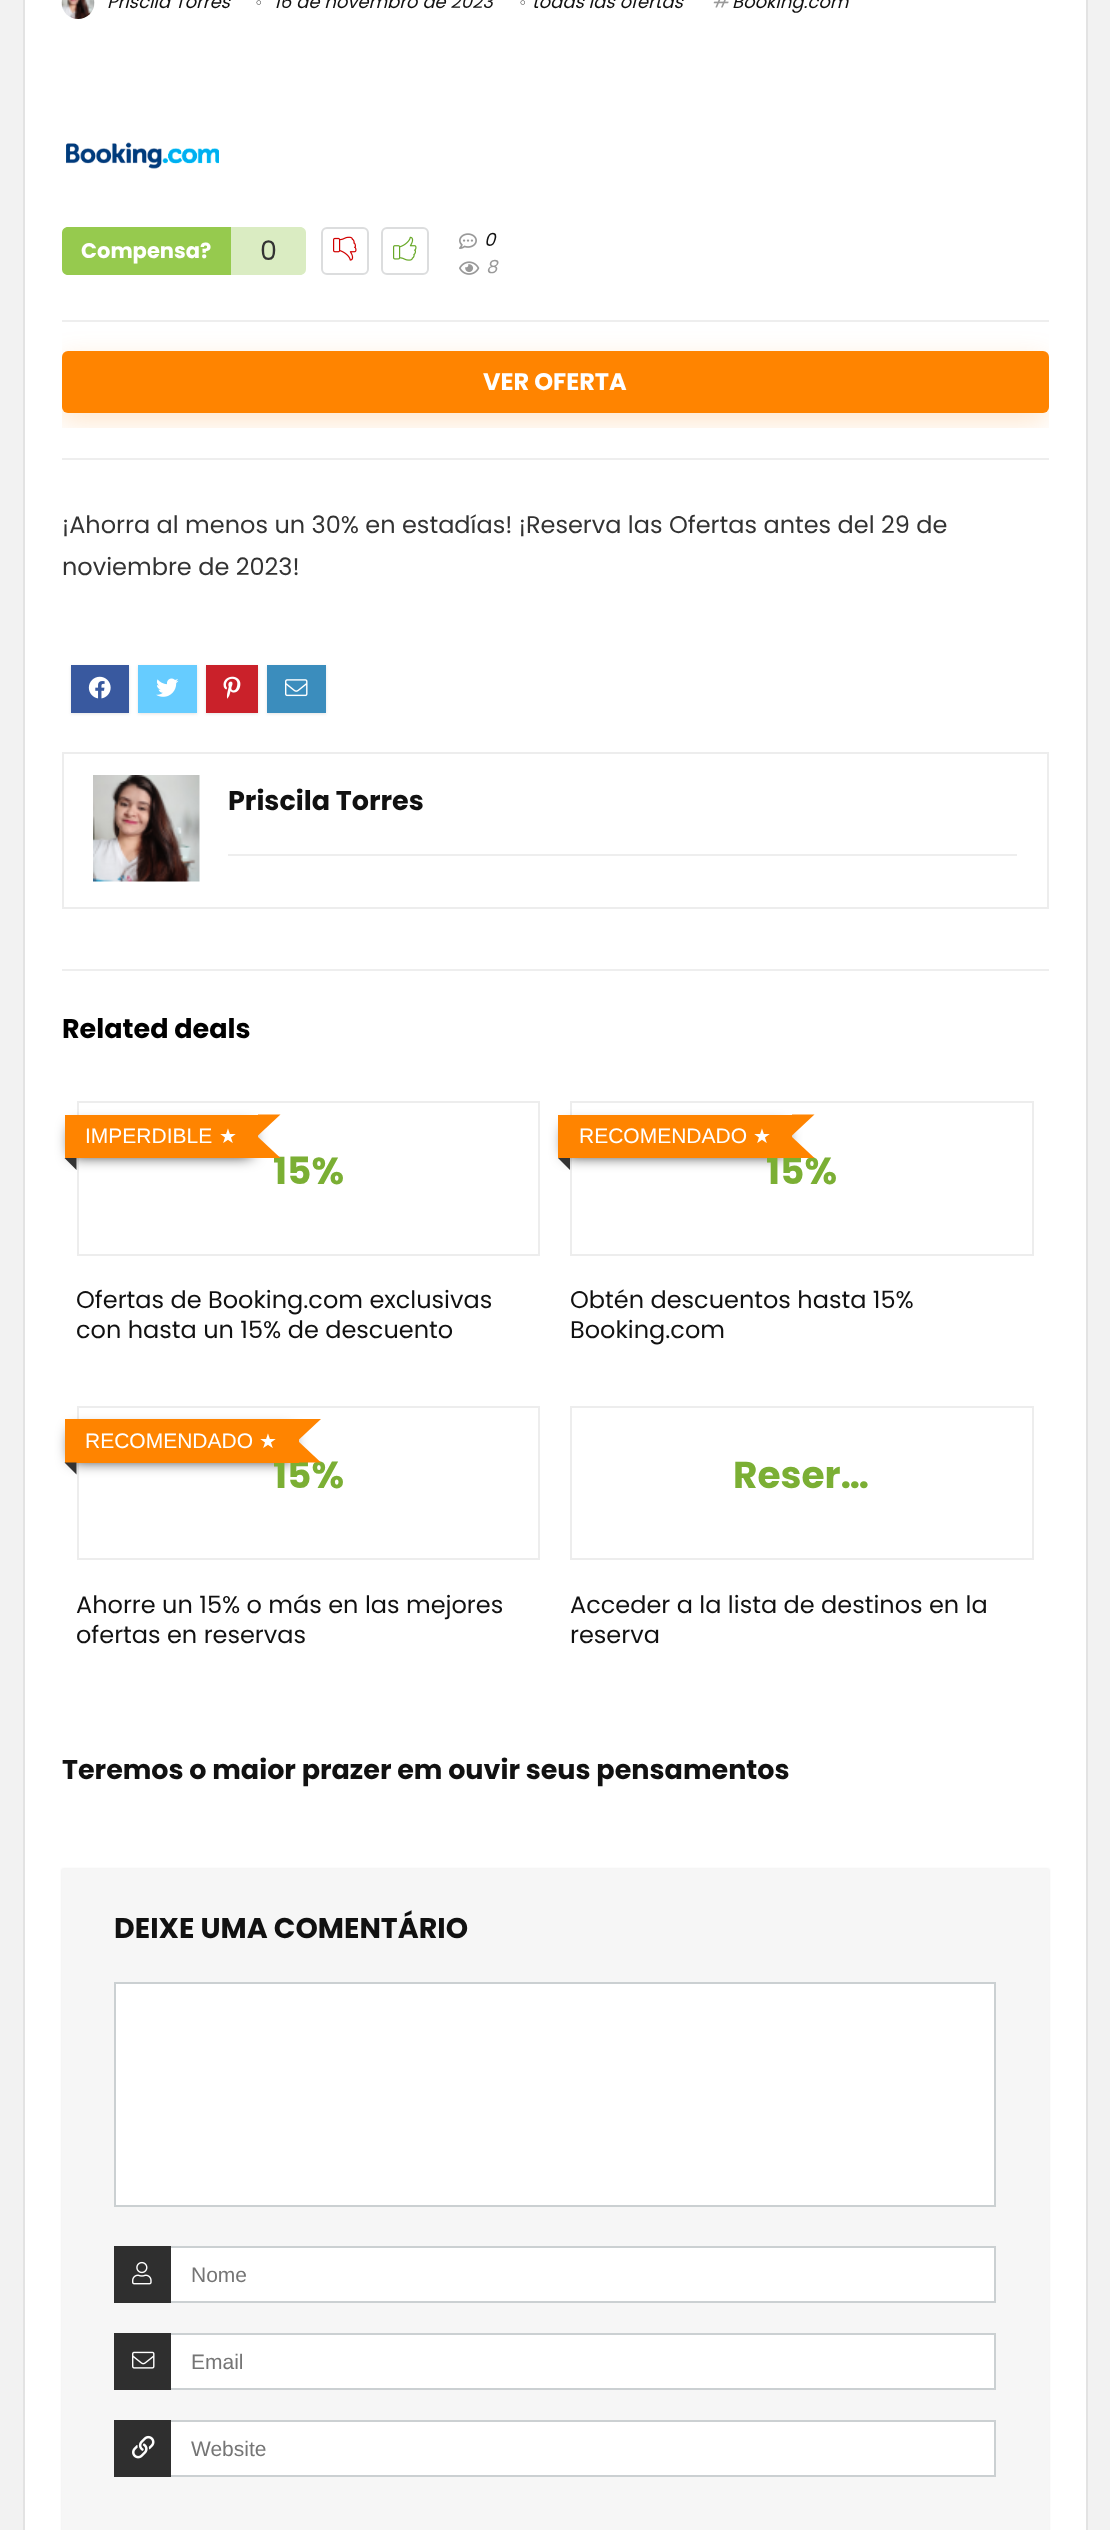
<svg xmlns="http://www.w3.org/2000/svg" width="1110" height="2530" viewBox="0 0 1110 2530">
  <defs>
    <clipPath id="clip1"><rect x="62" y="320" width="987" height="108"/></clipPath>
  </defs>
  <rect width="100%" height="100%" fill="rgb(242,242,242)"/>
  <rect x="24" y="-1" width="1063" height="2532" fill="rgb(255,255,255)" stroke="rgb(227,227,227)" stroke-width="2"/>
  <image x="61" y="0" width="34" height="19" href="pic1.png"/>
  <text x="107" y="8" font-family="Poppins" font-size="18" font-style="italic" fill="rgb(17,17,17)">Priscila Torres</text>
  <image x="256" y="0" width="5" height="5" href="pic2.png"/>
  <text x="274" y="8" font-family="Poppins" font-size="18" font-style="italic" fill="rgb(17,17,17)">16 de novembro de 2023</text>
  <image x="520" y="0" width="5" height="5" href="pic2.png"/>
  <text x="532" y="8" font-family="Poppins" font-size="18" font-style="italic" fill="rgb(17,17,17)">todas las ofertas</text>
  <image x="713" y="0" width="16" height="8" href="pic3.png"/>
  <text x="732" y="8" font-family="Poppins" font-size="18" font-style="italic" fill="rgb(17,17,17)">Booking.com</text>
  <image x="66" y="142" width="153" height="27" href="pic4.png"/>
  <rect x="62" y="458" width="987" height="2" fill="rgb(238,238,238)"/>
  <path d="M68 227H231V275H68C64.5 275 62 272.5 62 269V233C62 229.5 64.5 227 68 227Z" fill="rgb(150,202,78)"/>
  <text x="81" y="258" font-family="Poppins" font-size="21" font-weight="bold" fill="rgb(255,255,255)">Compensa?</text>
  <path d="M231 227H300C303.5 227 306 229.5 306 233V269C306 272.5 303.5 275 300 275H231Z" fill="rgb(218,236,194)"/>
  <text x="260" y="260" font-family="Poppins" font-size="27" fill="rgb(51,51,51)">0</text>
  <rect x="322" y="228" width="46" height="46" rx="5" fill="none" stroke="rgb(220,221,222)" stroke-width="2"/>
  <image x="333" y="236" width="24" height="25" href="pic5.png"/>
  <rect x="382" y="228" width="46" height="46" rx="5" fill="none" stroke="rgb(220,221,222)" stroke-width="2"/>
  <image x="393" y="236" width="24" height="25" href="pic6.png"/>
  <image x="459" y="233" width="18" height="16" href="pic7.png"/>
  <text x="484" y="246" font-family="Poppins" font-size="18" font-style="italic" fill="rgb(17,17,17)">0</text>
  <image x="459" y="261" width="21" height="14" href="pic8.png"/>
  <text x="486" y="273" font-family="Poppins" font-size="18" font-style="italic" fill="rgb(153,153,153)">8</text>
  <rect x="62" y="320" width="987" height="2" fill="rgb(238,238,238)"/>
  <g clip-path="url(#clip1)">
    <rect x="60" y="360" width="987" height="62" rx="6" fill="rgba(255,132,0,0.2)" filter="blur(14px)"/>
  </g>
  <rect x="62" y="351" width="987" height="62" rx="6" fill="rgb(255,132,0)"/>
  <text x="483" y="390" font-family="Poppins" font-size="24" font-weight="bold" fill="rgb(255,255,255)">VER OFERTA</text>
  <g font-family="Poppins" font-size="24" fill="rgb(51,51,51)">
    <text>
      <tspan x="62" y="533">¡Ahorra al menos un 30% en estadías! ¡Reserva las Ofertas antes del 29 de</tspan>
      <tspan x="62" y="575">noviembre de 2023!</tspan>
    </text>
  </g>
  <rect x="71" y="666" width="58" height="48" fill="rgb(228,228,228)" filter="blur(1.5px)"/>
  <rect x="71" y="665" width="58" height="48" fill="rgb(57,89,159)"/>
  <image x="88" y="676" width="23" height="23" href="pic9.png"/>
  <rect x="138" y="666" width="59" height="48" fill="rgb(228,228,228)" filter="blur(1.5px)"/>
  <rect x="138" y="665" width="59" height="48" fill="rgb(102,204,255)"/>
  <image x="156" y="678" width="23" height="19" href="pic10.png"/>
  <rect x="206" y="666" width="52" height="48" fill="rgb(228,228,228)" filter="blur(1.5px)"/>
  <rect x="206" y="665" width="52" height="48" fill="rgb(202,33,42)"/>
  <image x="223" y="676" width="18" height="23" href="pic11.png"/>
  <rect x="267" y="666" width="59" height="48" fill="rgb(228,228,228)" filter="blur(1.5px)"/>
  <rect x="267" y="665" width="59" height="48" fill="rgb(59,141,189)"/>
  <image x="285" y="679" width="23" height="18" href="pic12.png"/>
  <rect x="63" y="753" width="985" height="155" fill="none" stroke="rgb(237,237,237)" stroke-width="2"/>
  <image x="93" y="775" width="107" height="107" href="pic13.png"/>
  <text x="228" y="810" font-family="Poppins" font-size="27" font-weight="bold" fill="rgb(17,17,17)">Priscila Torres</text>
  <rect x="228" y="854" width="789" height="2" fill="rgb(238,238,238)"/>
  <rect x="62" y="969" width="987" height="2" fill="rgb(238,238,238)"/>
  <text x="62" y="1038" font-family="Poppins" font-size="27" font-weight="bold" fill="rgb(0,0,0)">Related deals</text>
  <rect x="78" y="1102" width="461" height="153" fill="none" stroke="rgb(237,237,237)" stroke-width="2"/>
  <rect x="72" y="1127" width="179" height="28" fill="rgb(0,0,0)" filter="blur(7.5px)"/>
  <rect x="65" y="1115" width="193" height="43" fill="rgb(255,132,0)"/>
  <text x="85" y="1143" font-family="Liberation Sans" font-size="21" fill="rgb(255,255,255)">IMPERDIBLE</text>
  <text x="219" y="1143" font-family="DejaVu Sans" font-size="20" fill="rgb(255,255,255)">★</text>
  <path d="M76.5 1158V1170L64.5 1158Z" fill="rgb(51,51,51)"/>
  <path d="M258 1114.5H280.5L258 1135.5Z" fill="rgb(255,132,0)"/>
  <text x="273" y="1184" font-family="Poppins" font-size="37.5" font-weight="bold" fill="rgb(123,175,52)">15%</text>
  <path d="M280.5 1158H258V1137Z" fill="rgb(255,132,0)"/>
  <g font-family="Poppins" font-size="24" fill="rgb(17,17,17)">
    <text>
      <tspan x="76" y="1308">Ofertas de Booking.com exclusivas</tspan>
      <tspan x="76" y="1338">con hasta un 15% de descuento</tspan>
    </text>
  </g>
  <rect x="571" y="1102" width="462" height="153" fill="none" stroke="rgb(237,237,237)" stroke-width="2"/>
  <rect x="566" y="1127" width="219" height="28" fill="rgb(0,0,0)" filter="blur(7.5px)"/>
  <text x="766" y="1184" font-family="Poppins" font-size="37.5" font-weight="bold" fill="rgb(123,175,52)">15%</text>
  <rect x="558" y="1115" width="234" height="43" fill="rgb(255,132,0)"/>
  <text x="579" y="1143" font-family="Liberation Sans" font-size="21" fill="rgb(255,255,255)">RECOMENDADO</text>
  <text x="753" y="1143" font-family="DejaVu Sans" font-size="20" fill="rgb(255,255,255)">★</text>
  <path d="M570 1158V1170L558 1158Z" fill="rgb(51,51,51)"/>
  <path d="M792 1114.5H814.5L792 1135.5Z" fill="rgb(255,132,0)"/>
  <path d="M814.5 1158H792V1137Z" fill="rgb(255,132,0)"/>
  <g font-family="Poppins" font-size="24" fill="rgb(17,17,17)">
    <text>
      <tspan x="570" y="1308">Obtén descuentos hasta 15%</tspan>
      <tspan x="570" y="1338">Booking.com</tspan>
    </text>
  </g>
  <rect x="78" y="1407" width="461" height="152" fill="none" stroke="rgb(237,237,237)" stroke-width="2"/>
  <rect x="72" y="1431" width="219" height="29" fill="rgb(0,0,0)" filter="blur(7.5px)"/>
  <text x="273" y="1488" font-family="Poppins" font-size="37.5" font-weight="bold" fill="rgb(123,175,52)">15%</text>
  <rect x="65" y="1419" width="234" height="44" fill="rgb(255,132,0)"/>
  <text x="85" y="1448" font-family="Liberation Sans" font-size="21" fill="rgb(255,255,255)">RECOMENDADO</text>
  <text x="259" y="1448" font-family="DejaVu Sans" font-size="20" fill="rgb(255,255,255)">★</text>
  <path d="M76.5 1462.5V1474.5L64.5 1462.5Z" fill="rgb(51,51,51)"/>
  <path d="M298.5 1419H321L298.5 1440Z" fill="rgb(255,132,0)"/>
  <path d="M321 1462.5H298.5V1441.5Z" fill="rgb(255,132,0)"/>
  <g font-family="Poppins" font-size="24" fill="rgb(17,17,17)">
    <text>
      <tspan x="76" y="1613">Ahorre un 15% o más en las mejores</tspan>
      <tspan x="76" y="1643">ofertas en reservas</tspan>
    </text>
  </g>
  <rect x="571" y="1407" width="462" height="152" fill="none" stroke="rgb(237,237,237)" stroke-width="2"/>
  <text x="733" y="1488" font-family="Poppins" font-size="37.5" font-weight="bold" fill="rgb(123,175,52)">Reser…</text>
  <g font-family="Poppins" font-size="24" fill="rgb(17,17,17)">
    <text>
      <tspan x="570" y="1613">Acceder a la lista de destinos en la</tspan>
      <tspan x="570" y="1643">reserva</tspan>
    </text>
  </g>
  <text x="62" y="1779" font-family="Poppins" font-size="27" font-weight="bold" fill="rgb(17,17,17)">Teremos o maior prazer em ouvir seus pensamentos</text>
  <rect x="62" y="1869" width="987" height="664" fill="rgba(0,0,0,0.12)" filter="blur(1px)"/>
  <rect x="62" y="1869" width="987" height="661" fill="rgb(246,246,246)"/>
  <text x="114" y="1938" font-family="Poppins" font-size="28.5" font-weight="bold" fill="rgb(17,17,17)">DEIXE UMA COMENTÁRIO</text>
  <rect x="115" y="1983" width="880" height="223" fill="rgb(255,255,255)" stroke="rgb(203,208,210)" stroke-width="2"/>
  <rect x="171" y="2248" width="823" height="53" fill="rgb(255,255,255)"/>
  <rect x="115" y="2247" width="880" height="55" fill="none" stroke="rgb(203,208,210)" stroke-width="2"/>
  <rect x="114" y="2246" width="57" height="57" fill="rgb(47,47,47)"/>
  <image x="132" y="2261" width="20" height="24" href="pic14.png"/>
  <text x="191" y="2282" font-family="Liberation Sans" font-size="21" fill="rgb(117,117,117)">Nome</text>
  <rect x="171" y="2335" width="823" height="53" fill="rgb(255,255,255)"/>
  <rect x="115" y="2334" width="880" height="55" fill="none" stroke="rgb(203,208,210)" stroke-width="2"/>
  <rect x="114" y="2333" width="57" height="57" fill="rgb(47,47,47)"/>
  <image x="132" y="2351" width="23" height="18" href="pic15.png"/>
  <text x="191" y="2369" font-family="Liberation Sans" font-size="21" fill="rgb(117,117,117)">Email</text>
  <rect x="171" y="2422" width="823" height="53" fill="rgb(255,255,255)"/>
  <rect x="115" y="2421" width="880" height="55" fill="none" stroke="rgb(203,208,210)" stroke-width="2"/>
  <rect x="114" y="2420" width="57" height="57" fill="rgb(47,47,47)"/>
  <image x="132" y="2435" width="23" height="24" href="pic16.png"/>
  <text x="191" y="2456" font-family="Liberation Sans" font-size="21" fill="rgb(117,117,117)">Website</text>
</svg>
